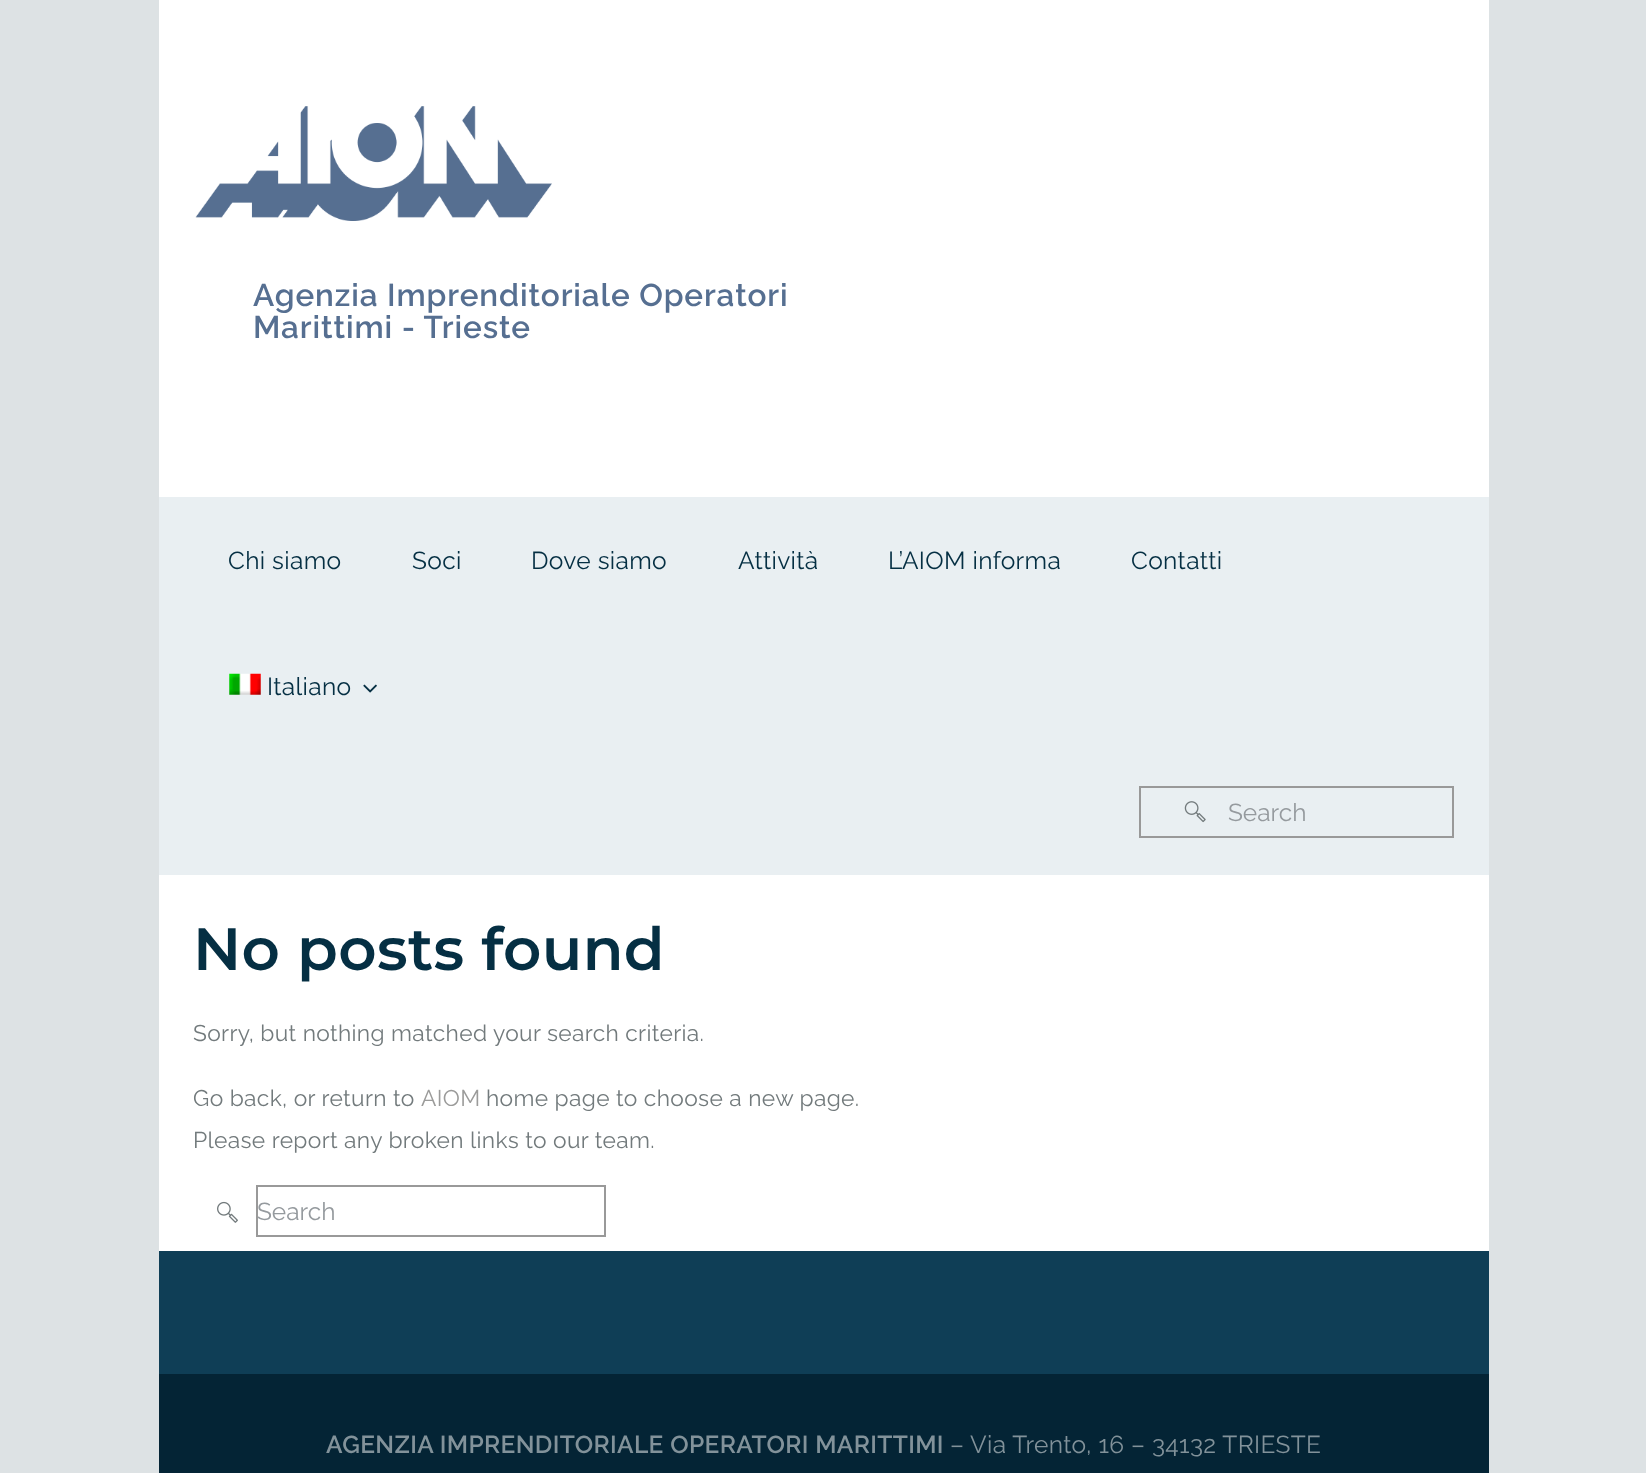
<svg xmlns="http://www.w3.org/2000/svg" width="1646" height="1473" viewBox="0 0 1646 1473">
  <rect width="100%" height="100%" fill="rgb(221,226,228)"/>
  <rect x="159" y="0" width="1330" height="1251" fill="rgb(255,255,255)"/>
  <image x="195" y="106" width="357" height="115" href="pic1.png"/>
  <g font-family="Raleway" font-size="31.5" font-weight="600" letter-spacing="0.9" fill="rgb(86,111,145)">
    <text>
      <tspan x="253" y="306">Agenzia Imprenditoriale Operatori</tspan>
      <tspan x="253" y="338">Marittimi - Trieste</tspan>
    </text>
  </g>
  <rect x="159" y="497" width="1330" height="378" fill="rgb(233,239,242)"/>
  <g font-family="Raleway" font-size="24.5" letter-spacing="0.35" fill="rgb(5,47,67)">
    <text x="228" y="569">Chi siamo</text>
    <text x="412" y="569">Soci</text>
    <text x="531" y="569">Dove siamo</text>
    <text x="738" y="569">Attività</text>
    <text x="888" y="569">L’AIOM informa</text>
    <text x="1131" y="569">Contatti</text>
  </g>
  <image x="229" y="673" width="32" height="22" href="pic2.png"/>
  <text x="267" y="695" font-family="Raleway" font-size="24.5" letter-spacing="0.35" fill="rgb(5,47,67)">Italiano</text>
  <image x="363" y="684" width="14" height="9" href="pic3.png"/>
  <rect x="1140" y="787" width="313" height="50" fill="none" stroke="rgb(153,153,153)" stroke-width="2"/>
  <image x="1184" y="801" width="22" height="22" href="pic4.png"/>
  <text x="1228" y="821" font-family="Raleway" font-size="24.5" fill="rgb(149,154,158)">Search</text>
  <text x="193" y="970" font-family="Montserrat" font-size="59.5" font-weight="600" letter-spacing="0.35" fill="rgb(5,47,67)">No posts found</text>
  <g font-family="Raleway" font-size="22.75" letter-spacing="0.35" fill="rgb(114,122,124)">
    <text x="193" y="1041">Sorry, but nothing matched your search criteria.</text>
    <text x="193" y="1106">Go back, or return to</text>
  </g>
  <text x="421" y="1106" font-family="Raleway" font-size="22.75" letter-spacing="0.35" fill="rgb(155,155,154)">AIOM</text>
  <g font-family="Raleway" font-size="22.75" letter-spacing="0.35" fill="rgb(114,122,124)">
    <text x="486" y="1106">home page to choose a new page.</text>
    <text x="193" y="1148">Please report any broken links to our team.</text>
  </g>
  <image x="217" y="1201" width="21" height="22" href="pic5.png"/>
  <rect x="257" y="1186" width="348" height="50" fill="none" stroke="rgb(153,153,153)" stroke-width="2"/>
  <text x="257" y="1220" font-family="Raleway" font-size="24.5" fill="rgb(149,154,158)">Search</text>
  <rect x="159" y="1251" width="1330" height="123" fill="rgb(15,62,86)"/>
  <rect x="159" y="1374" width="1330" height="99" fill="rgb(4,36,53)"/>
  <text x="326" y="1453" font-family="Raleway" font-size="24.5" font-weight="600" letter-spacing="0.35" fill="rgb(130,146,154)">AGENZIA IMPRENDITORIALE OPERATORI MARITTIMI</text>
  <text x="950" y="1453" font-family="Raleway" font-size="24.5" letter-spacing="0.35" fill="rgb(130,146,154)">– Via Trento, 16 – 34132 TRIESTE</text>
</svg>
